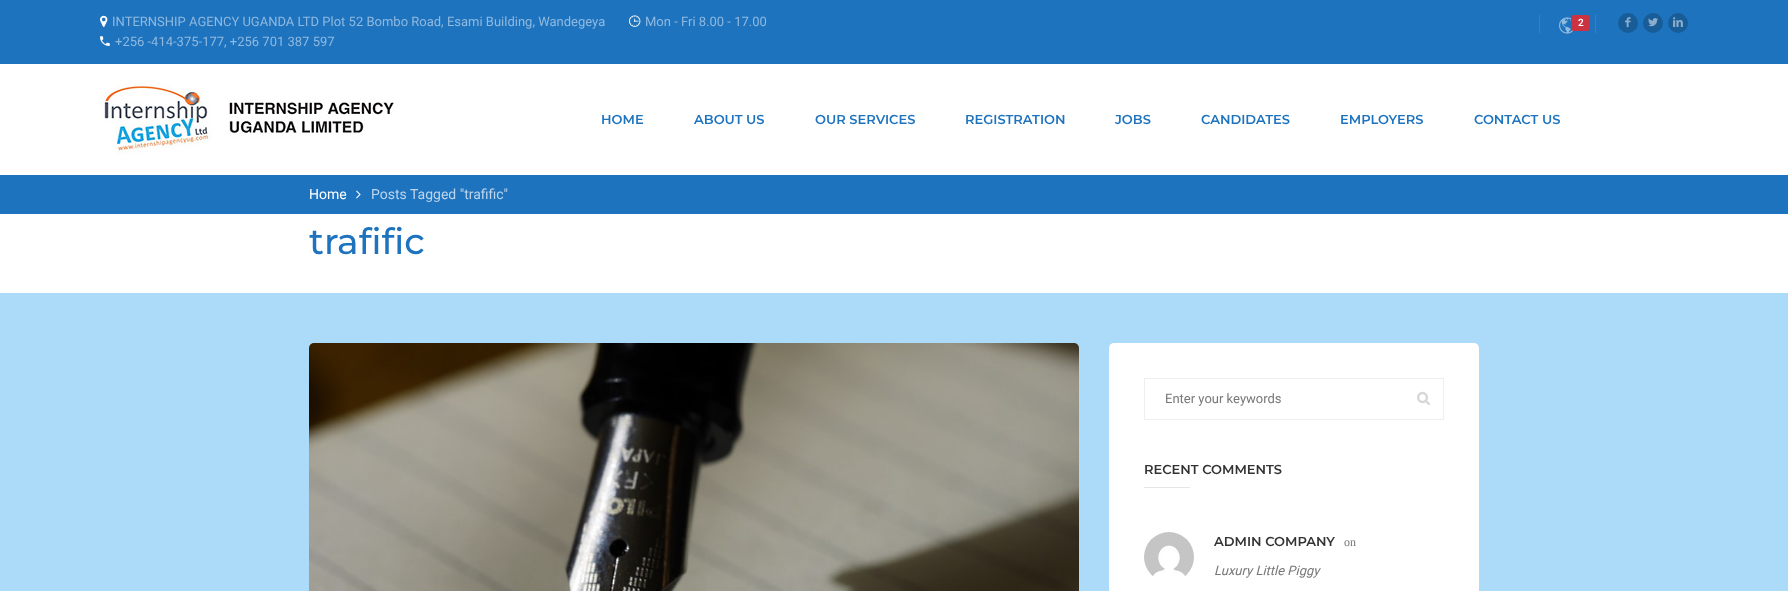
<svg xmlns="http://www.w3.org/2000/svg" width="1788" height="591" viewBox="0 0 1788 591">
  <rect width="100%" height="100%" fill="rgb(172,218,249)"/>
  <rect x="0" y="0" width="1788" height="64" fill="rgb(30,115,190)"/>
  <image x="100" y="15" width="8" height="12" href="pic1.png"/>
  <text x="112" y="26" font-family="Roboto" font-size="13" fill="rgb(143,185,223)">INTERNSHIP AGENCY UGANDA LTD Plot 52 Bombo Road, Esami Building, Wandegeya</text>
  <image x="629" y="15" width="12" height="12" href="pic2.png"/>
  <text x="645" y="26" font-family="Roboto" font-size="13" fill="rgb(143,185,223)">Mon - Fri 8.00 - 17.00</text>
  <image x="100" y="36" width="10" height="10" href="pic3.png"/>
  <text x="115" y="46" font-family="Roboto" font-size="13" fill="rgb(143,185,223)">+256 -414-375-177, +256 701 387 597</text>
  <rect x="1539" y="15" width="1" height="18" fill="rgb(53,129,197)"/>
  <image x="1559" y="17" width="15" height="17" href="pic4.png"/>
  <rect x="1571" y="15" width="19" height="16" rx="3" fill="rgb(204,51,65)"/>
  <text x="1578" y="26" font-family="Roboto" font-size="10" font-weight="600" fill="rgb(255,255,255)">2</text>
  <rect x="1595" y="15" width="1" height="18" fill="rgb(53,129,197)"/>
  <circle cx="1628" cy="23" r="10" fill="rgb(24,92,152)"/>
  <image x="1625" y="17" width="6" height="11" href="pic5.png"/>
  <circle cx="1653" cy="23" r="10" fill="rgb(24,92,152)"/>
  <image x="1648" y="18" width="10" height="9" href="pic6.png"/>
  <circle cx="1678" cy="23" r="10" fill="rgb(24,92,152)"/>
  <image x="1673" y="17" width="10" height="10" href="pic7.png"/>
  <rect x="0" y="64" width="1788" height="229" fill="rgb(255,255,255)"/>
  <image x="100" y="83" width="295" height="72" href="pic8.png"/>
  <g font-family="Montserrat" font-size="13" font-weight="600" fill="rgb(30,115,190)">
    <text x="601" y="124">HOME</text>
    <text x="694" y="124">ABOUT US</text>
    <text x="815" y="124">OUR SERVICES</text>
    <text x="965" y="124">REGISTRATION</text>
    <text x="1115" y="124">JOBS</text>
    <text x="1201" y="124">CANDIDATES</text>
    <text x="1340" y="124">EMPLOYERS</text>
    <text x="1474" y="124">CONTACT US</text>
  </g>
  <rect x="0" y="175" width="1788" height="39" fill="rgb(30,115,190)"/>
  <text x="309" y="199" font-family="Roboto" font-size="14" fill="rgb(255,255,255)">Home</text>
  <image x="356" y="190" width="5" height="9" href="pic9.png"/>
  <text x="371" y="199" font-family="Roboto" font-size="14" fill="rgb(188,213,236)">Posts Tagged "trafific"</text>
  <text x="309" y="254" font-family="Montserrat" font-size="36" font-weight="500" fill="rgb(30,115,190)">trafific</text>
  <image x="309" y="343" width="770" height="248" href="pic10.png"/>
  <rect x="1109" y="343" width="370" height="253" rx="5" fill="rgb(255,255,255)"/>
  <rect x="1144.5" y="378.5" width="299" height="41" fill="none" stroke="rgb(238,238,238)"/>
  <text x="1165" y="403" font-family="Roboto" font-size="13" fill="rgb(119,119,119)">Enter your keywords</text>
  <image x="1417" y="391" width="13" height="14" href="pic11.png"/>
  <text x="1144" y="474" font-family="Montserrat" font-size="13" font-weight="600" fill="rgb(51,51,51)">RECENT COMMENTS</text>
  <rect x="1144" y="487" width="46" height="1" fill="rgb(230,230,230)"/>
  <image x="1144" y="532" width="50" height="44" href="pic12.png"/>
  <text x="1214" y="546" font-family="Montserrat" font-size="13" font-weight="600" fill="rgb(51,51,51)">ADMIN COMPANY</text>
  <text x="1344" y="546" font-family="Liberation Serif" font-size="12" fill="rgb(119,119,119)">on</text>
  <text x="1214" y="575" font-family="Roboto" font-size="13" font-style="italic" fill="rgb(119,119,119)">Luxury Little Piggy</text>
</svg>
